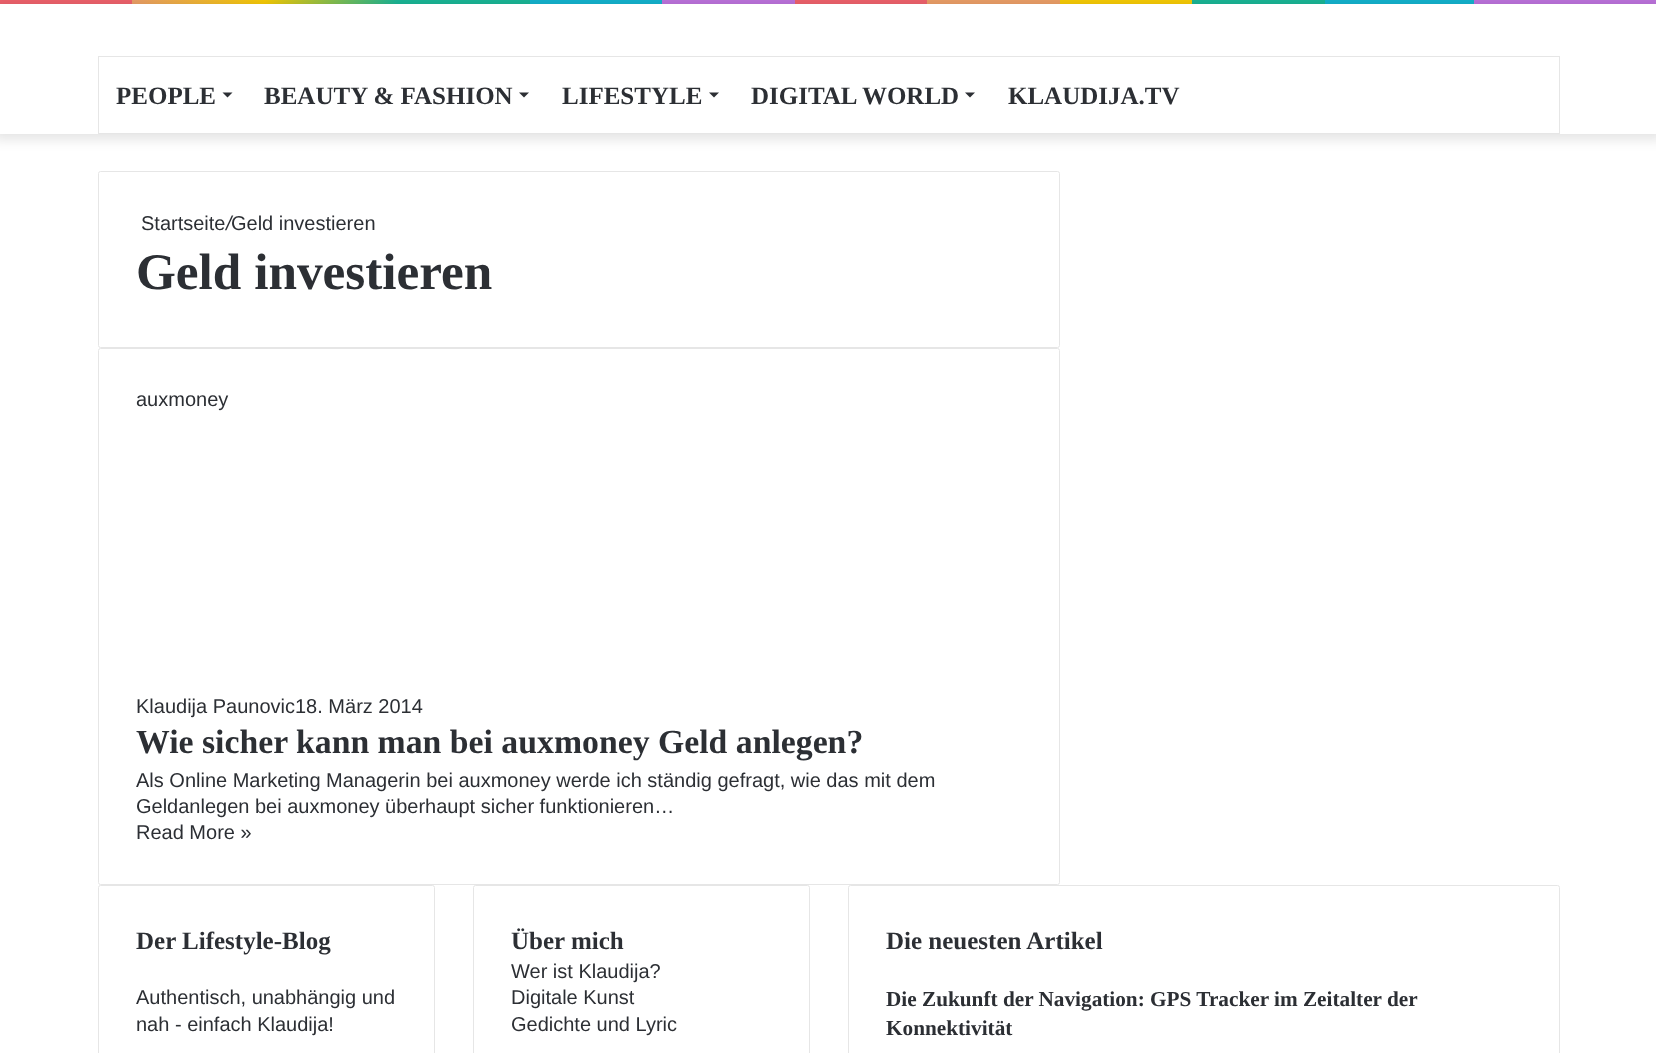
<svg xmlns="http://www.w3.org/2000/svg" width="1656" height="1053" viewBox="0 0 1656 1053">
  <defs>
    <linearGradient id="g1" gradientUnits="userSpaceOnUse" x1="0" y1="1.9" x2="1656" y2="1.9"><stop offset="0" stop-color="rgb(247,101,112)"/><stop offset="0.08" stop-color="rgb(247,101,112)"/><stop offset="0.08" stop-color="rgb(243,164,107)"/><stop offset="0.16" stop-color="rgb(255,210,5)"/><stop offset="0.24" stop-color="rgb(27,188,155)"/><stop offset="0.32" stop-color="rgb(27,188,155)"/><stop offset="0.32" stop-color="rgb(20,185,213)"/><stop offset="0.4" stop-color="rgb(20,185,213)"/><stop offset="0.4" stop-color="rgb(195,119,228)"/><stop offset="0.48" stop-color="rgb(195,119,228)"/><stop offset="0.48" stop-color="rgb(247,101,112)"/><stop offset="0.56" stop-color="rgb(247,101,112)"/><stop offset="0.56" stop-color="rgb(243,164,107)"/><stop offset="0.64" stop-color="rgb(243,164,107)"/><stop offset="0.64" stop-color="rgb(255,210,5)"/><stop offset="0.72" stop-color="rgb(255,210,5)"/><stop offset="0.72" stop-color="rgb(27,188,155)"/><stop offset="0.8" stop-color="rgb(27,188,155)"/><stop offset="0.8" stop-color="rgb(20,185,213)"/><stop offset="0.89" stop-color="rgb(20,185,213)"/><stop offset="0.89" stop-color="rgb(195,119,228)"/><stop offset="1" stop-color="rgb(195,119,228)"/></linearGradient>
  </defs>
  <rect width="100%" height="100%" fill="rgb(255,255,255)"/>
  <rect x="0" y="0" width="1656" height="4" fill="url(#g1)"/>
  <rect x="-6" y="-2" width="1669" height="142" fill="rgba(0,0,0,0.1)" filter="blur(6px)"/>
  <rect x="0" y="4" width="1656" height="130" fill="rgb(255,255,255)"/>
  <rect x="98.5" y="56.5" width="1461" height="77" fill="none" stroke="rgb(230,230,230)"/>
  <text x="116" y="104" font-family="Liberation Serif" font-size="25" font-weight="bold" fill="rgb(44,47,52)">PEOPLE</text>
  <path d="M222.5 92.5H232.5L227.5 97.5Z" fill="rgb(44,47,52)"/>
  <text x="264" y="104" font-family="Liberation Serif" font-size="25" font-weight="bold" fill="rgb(44,47,52)">BEAUTY &amp; FASHION</text>
  <path d="M519 92.5H529L524 97.5Z" fill="rgb(44,47,52)"/>
  <text x="562" y="104" font-family="Liberation Serif" font-size="25" font-weight="bold" fill="rgb(44,47,52)">LIFESTYLE</text>
  <path d="M709 92.5H719L714 97.5Z" fill="rgb(44,47,52)"/>
  <text x="751" y="104" font-family="Liberation Serif" font-size="25" font-weight="bold" fill="rgb(44,47,52)">DIGITAL WORLD</text>
  <path d="M965 92.5H975L970 97.5Z" fill="rgb(44,47,52)"/>
  <text x="1008" y="104" font-family="Liberation Serif" font-size="25" font-weight="bold" fill="rgb(44,47,52)">KLAUDIJA.TV</text>
  <rect x="98.5" y="171.5" width="961" height="176" rx="2" fill="none" stroke="rgb(230,230,230)"/>
  <text x="141" y="230" font-family="Liberation Sans" font-size="20" fill="rgb(44,47,52)">Startseite</text>
  <text x="226" y="230" font-family="Liberation Sans" font-size="20" font-style="italic" fill="rgb(44,47,52)">/</text>
  <text x="231" y="230" font-family="Liberation Sans" font-size="20" fill="rgb(44,47,52)">Geld investieren</text>
  <text x="136" y="289" font-family="Liberation Serif" font-size="51.25" font-weight="bold" fill="rgb(44,47,52)">Geld investieren</text>
  <rect x="98.5" y="348.5" width="961" height="536" rx="2" fill="none" stroke="rgb(230,230,230)"/>
  <g font-family="Liberation Sans" font-size="20" fill="rgb(44,47,52)">
    <text x="136" y="406">auxmoney</text>
    <text x="136" y="713">Klaudija Paunovic18. März 2014</text>
  </g>
  <text x="136" y="753" font-family="Liberation Serif" font-size="33.75" font-weight="bold" fill="rgb(44,47,52)">Wie sicher kann man bei auxmoney Geld anlegen?</text>
  <g font-family="Liberation Sans" font-size="20" fill="rgb(44,47,52)">
    <text>
      <tspan x="136" y="787">Als Online Marketing Managerin bei auxmoney werde ich ständig gefragt, wie das mit dem</tspan>
      <tspan x="136" y="813">Geldanlegen bei auxmoney überhaupt sicher funktionieren…</tspan>
      <tspan x="136" y="839">Read More »</tspan>
    </text>
  </g>
  <rect x="98.5" y="885.5" width="336" height="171" rx="2" fill="none" stroke="rgb(230,230,230)"/>
  <text x="136" y="949" font-family="Liberation Serif" font-size="25" font-weight="bold" fill="rgb(44,47,52)">Der Lifestyle-Blog</text>
  <g font-family="Liberation Sans" font-size="20" fill="rgb(44,47,52)">
    <text>
      <tspan x="136" y="1004">Authentisch, unabhängig und</tspan>
      <tspan x="136" y="1031">nah - einfach Klaudija!</tspan>
    </text>
  </g>
  <rect x="473.5" y="885.5" width="336" height="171" rx="2" fill="none" stroke="rgb(230,230,230)"/>
  <text x="511" y="949" font-family="Liberation Serif" font-size="25" font-weight="bold" fill="rgb(44,47,52)">Über mich</text>
  <g font-family="Liberation Sans" font-size="20" fill="rgb(44,47,52)">
    <text>
      <tspan x="511" y="978">Wer ist Klaudija?</tspan>
      <tspan x="511" y="1004">Digitale Kunst</tspan>
      <tspan x="511" y="1031">Gedichte und Lyric</tspan>
    </text>
  </g>
  <rect x="848.5" y="885.5" width="711" height="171" rx="2" fill="none" stroke="rgb(230,230,230)"/>
  <text x="886" y="949" font-family="Liberation Serif" font-size="25" font-weight="bold" fill="rgb(44,47,52)">Die neuesten Artikel</text>
  <g font-family="Liberation Serif" font-size="21.25" font-weight="bold" fill="rgb(44,47,52)">
    <text>
      <tspan x="886" y="1006">Die Zukunft der Navigation: GPS Tracker im Zeitalter der</tspan>
      <tspan x="886" y="1035">Konnektivität</tspan>
    </text>
  </g>
</svg>
